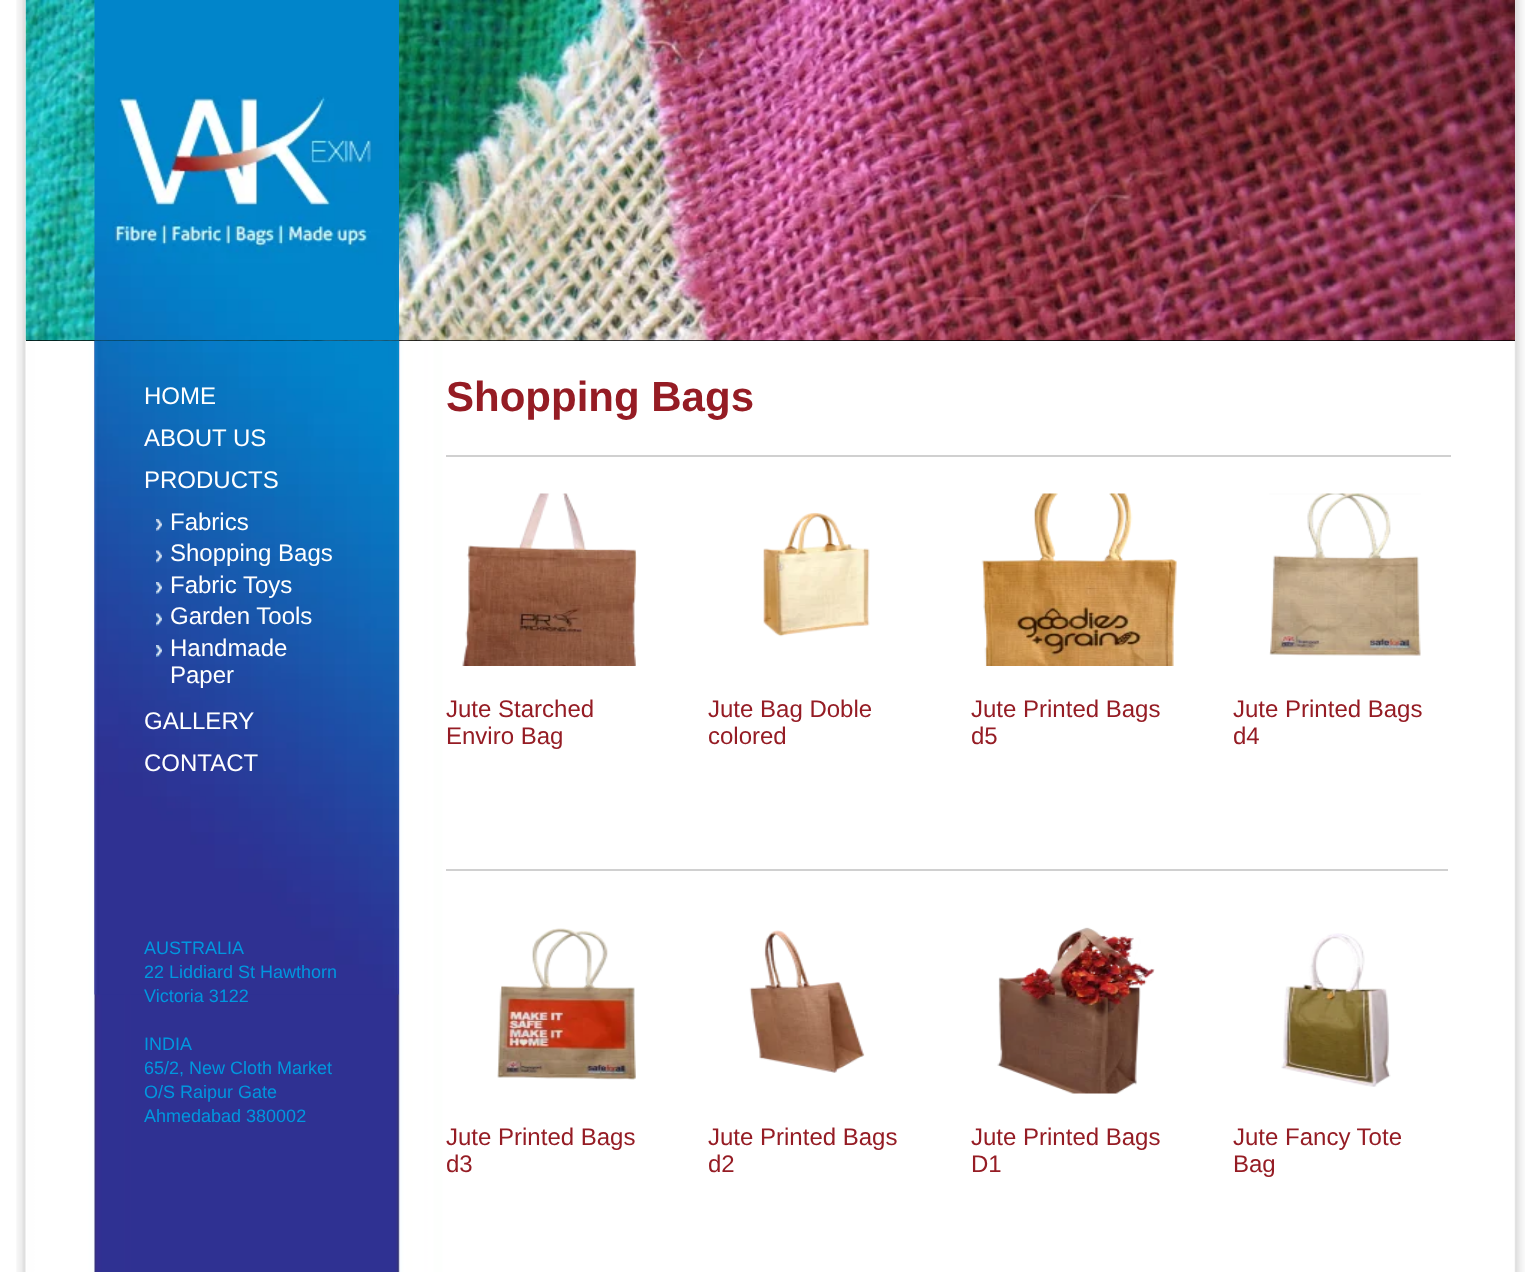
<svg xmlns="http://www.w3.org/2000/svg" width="1540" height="1272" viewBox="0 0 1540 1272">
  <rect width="100%" height="100%" fill="rgb(255,255,255)"/>
  <image x="16" y="0" width="1509" height="1272" href="pic1.png"/>
  <rect x="26" y="340" width="1489" height="1" fill="rgb(0,0,0)"/>
  <image x="25" y="0" width="1490" height="341" href="pic2.png"/>
  <image x="94" y="0" width="305" height="341" href="pic3.png"/>
  <image x="94" y="341" width="305" height="654" href="pic4.png"/>
  <g font-family="Liberation Sans" font-size="24" fill="rgb(255,255,255)">
    <text>
      <tspan x="144" y="404">HOME</tspan>
      <tspan x="144" y="446">ABOUT US</tspan>
      <tspan x="144" y="488">PRODUCTS</tspan>
    </text>
  </g>
  <image x="156" y="519" width="6" height="12" href="pic5.png"/>
  <text x="170" y="530" font-family="Liberation Sans" font-size="24" fill="rgb(255,255,255)">Fabrics</text>
  <image x="156" y="550" width="6" height="13" href="pic6.png"/>
  <text x="170" y="561" font-family="Liberation Sans" font-size="24" fill="rgb(255,255,255)">Shopping Bags</text>
  <image x="156" y="582" width="6" height="12" href="pic7.png"/>
  <text x="170" y="593" font-family="Liberation Sans" font-size="24" fill="rgb(255,255,255)">Fabric Toys</text>
  <image x="156" y="613" width="6" height="13" href="pic8.png"/>
  <text x="170" y="624" font-family="Liberation Sans" font-size="24" fill="rgb(255,255,255)">Garden Tools</text>
  <image x="156" y="645" width="6" height="12" href="pic9.png"/>
  <g font-family="Liberation Sans" font-size="24" fill="rgb(255,255,255)">
    <text>
      <tspan x="170" y="656">Handmade</tspan>
      <tspan x="170" y="683">Paper</tspan>
    </text>
    <text>
      <tspan x="144" y="729">GALLERY</tspan>
      <tspan x="144" y="771">CONTACT</tspan>
    </text>
  </g>
  <g font-family="Liberation Sans" font-size="18" fill="rgb(1,151,223)">
    <text>
      <tspan x="144" y="954">AUSTRALIA</tspan>
      <tspan x="144" y="978">22 Liddiard St Hawthorn</tspan>
      <tspan x="144" y="1002">Victoria 3122</tspan>
    </text>
    <text>
      <tspan x="144" y="1050">INDIA</tspan>
      <tspan x="144" y="1074">65/2, New Cloth Market</tspan>
      <tspan x="144" y="1098">O/S Raipur Gate</tspan>
      <tspan x="144" y="1122">Ahmedabad 380002</tspan>
    </text>
  </g>
  <rect x="446" y="455" width="1005" height="2" fill="rgb(208,208,208)"/>
  <text x="446" y="411" font-family="Liberation Sans" font-size="42" font-weight="bold" fill="rgb(149,28,36)">Shopping Bags</text>
  <rect x="446" y="869" width="1002" height="2" fill="rgb(208,208,208)"/>
  <image x="462" y="493" width="175" height="173" href="pic10.png"/>
  <g font-family="Liberation Sans" font-size="24" fill="rgb(149,28,36)">
    <text>
      <tspan x="446" y="717">Jute Starched</tspan>
      <tspan x="446" y="744">Enviro Bag</tspan>
    </text>
  </g>
  <image x="763" y="512" width="107" height="125" href="pic11.png"/>
  <g font-family="Liberation Sans" font-size="24" fill="rgb(149,28,36)">
    <text>
      <tspan x="708" y="717">Jute Bag Doble</tspan>
      <tspan x="708" y="744">colored</tspan>
    </text>
  </g>
  <image x="981" y="493" width="196" height="173" href="pic12.png"/>
  <g font-family="Liberation Sans" font-size="24" fill="rgb(149,28,36)">
    <text>
      <tspan x="971" y="717">Jute Printed Bags</tspan>
      <tspan x="971" y="744">d5</tspan>
    </text>
  </g>
  <image x="1269" y="493" width="152" height="163" href="pic13.png"/>
  <g font-family="Liberation Sans" font-size="24" fill="rgb(149,28,36)">
    <text>
      <tspan x="1233" y="717">Jute Printed Bags</tspan>
      <tspan x="1233" y="744">d4</tspan>
    </text>
  </g>
  <image x="497" y="928" width="139" height="152" href="pic14.png"/>
  <g font-family="Liberation Sans" font-size="24" fill="rgb(149,28,36)">
    <text>
      <tspan x="446" y="1145">Jute Printed Bags</tspan>
      <tspan x="446" y="1172">d3</tspan>
    </text>
  </g>
  <image x="749" y="930" width="116" height="143" href="pic15.png"/>
  <g font-family="Liberation Sans" font-size="24" fill="rgb(149,28,36)">
    <text>
      <tspan x="708" y="1145">Jute Printed Bags</tspan>
      <tspan x="708" y="1172">d2</tspan>
    </text>
  </g>
  <image x="997" y="927" width="158" height="167" href="pic16.png"/>
  <g font-family="Liberation Sans" font-size="24" fill="rgb(149,28,36)">
    <text>
      <tspan x="971" y="1145">Jute Printed Bags</tspan>
      <tspan x="971" y="1172">D1</tspan>
    </text>
  </g>
  <image x="1281" y="933" width="110" height="154" href="pic17.png"/>
  <g font-family="Liberation Sans" font-size="24" fill="rgb(149,28,36)">
    <text>
      <tspan x="1233" y="1145">Jute Fancy Tote</tspan>
      <tspan x="1233" y="1172">Bag</tspan>
    </text>
  </g>
</svg>
